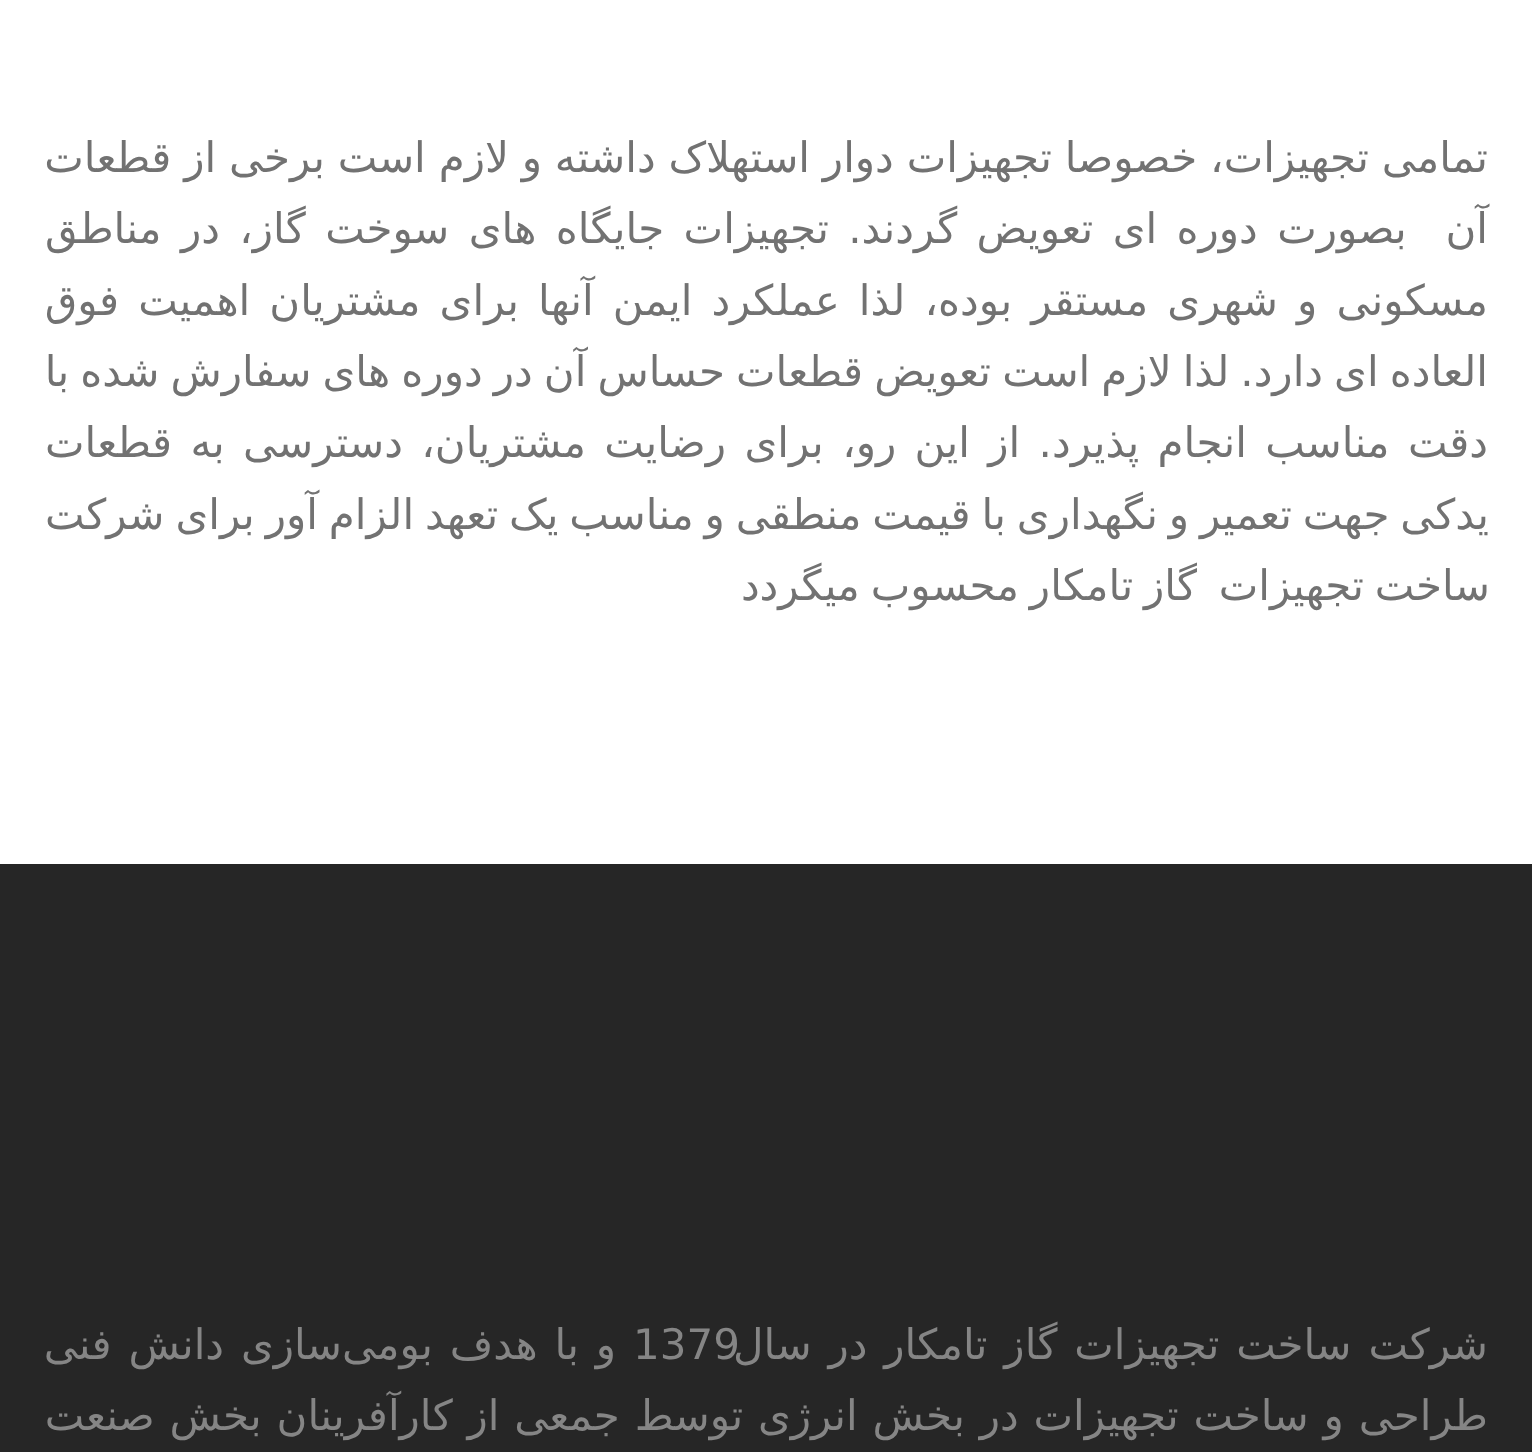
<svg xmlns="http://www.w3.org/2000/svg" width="1532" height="1452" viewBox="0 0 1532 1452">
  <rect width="100%" height="100%" fill="rgb(255,255,255)"/>
  <g font-family="DejaVu Sans" font-size="42" direction="rtl" fill="rgb(114,114,114)">
    <text xml:space="preserve"><tspan x="1488" y="172" word-spacing="-0.5">تمامی تجهیزات، خصوصا تجهیزات دوار استهلاک داشته و لازم است برخی از قطعات</tspan><tspan x="1488" y="243" word-spacing="6">آن  بصورت دوره ای تعویض گردند. تجهیزات جایگاه های سوخت گاز، در مناطق</tspan><tspan x="1488" y="315" word-spacing="5.75">مسکونی و شهری مستقر بوده، لذا عملکرد ایمن آنها برای مشتریان اهمیت فوق</tspan><tspan x="1488" y="386" word-spacing="-2.25">العاده ای دارد. لذا لازم است تعویض قطعات حساس آن در دوره های سفارش شده با</tspan><tspan x="1488" y="457" word-spacing="5">دقت مناسب انجام پذیرد. از این رو، برای رضایت مشتریان، دسترسی به قطعات</tspan></text>
    <text x="1489" y="529" word-spacing="-2.5">یدکی جهت تعمیر و نگهداری با قیمت منطقی و مناسب یک تعهد الزام آور برای شرکت</text>
    <text x="1490" y="600" word-spacing="-2.5" xml:space="preserve">ساخت تجهیزات  گاز تامکار محسوب میگردد</text>
  </g>
  <rect x="0" y="864" width="1532" height="588" fill="rgb(38,38,38)"/>
  <text x="633" y="1359" font-family="DejaVu Sans" font-size="42" fill="rgb(133,133,133)">1379</text>
  <g font-family="DejaVu Sans" font-size="42" direction="rtl" fill="rgb(133,133,133)">
    <text x="1488" y="1359" word-spacing="3.5">شرکت ساخت تجهیزات گاز تامکار در سال</text>
    <text x="616" y="1359" word-spacing="3.5">و با هدف بومی‌سازی دانش فنی</text>
    <text x="1488" y="1430" word-spacing="1.5">طراحی و ساخت تجهیزات در بخش انرژی توسط جمعی از کارآفرينان بخش صنعت</text>
  </g>
</svg>
